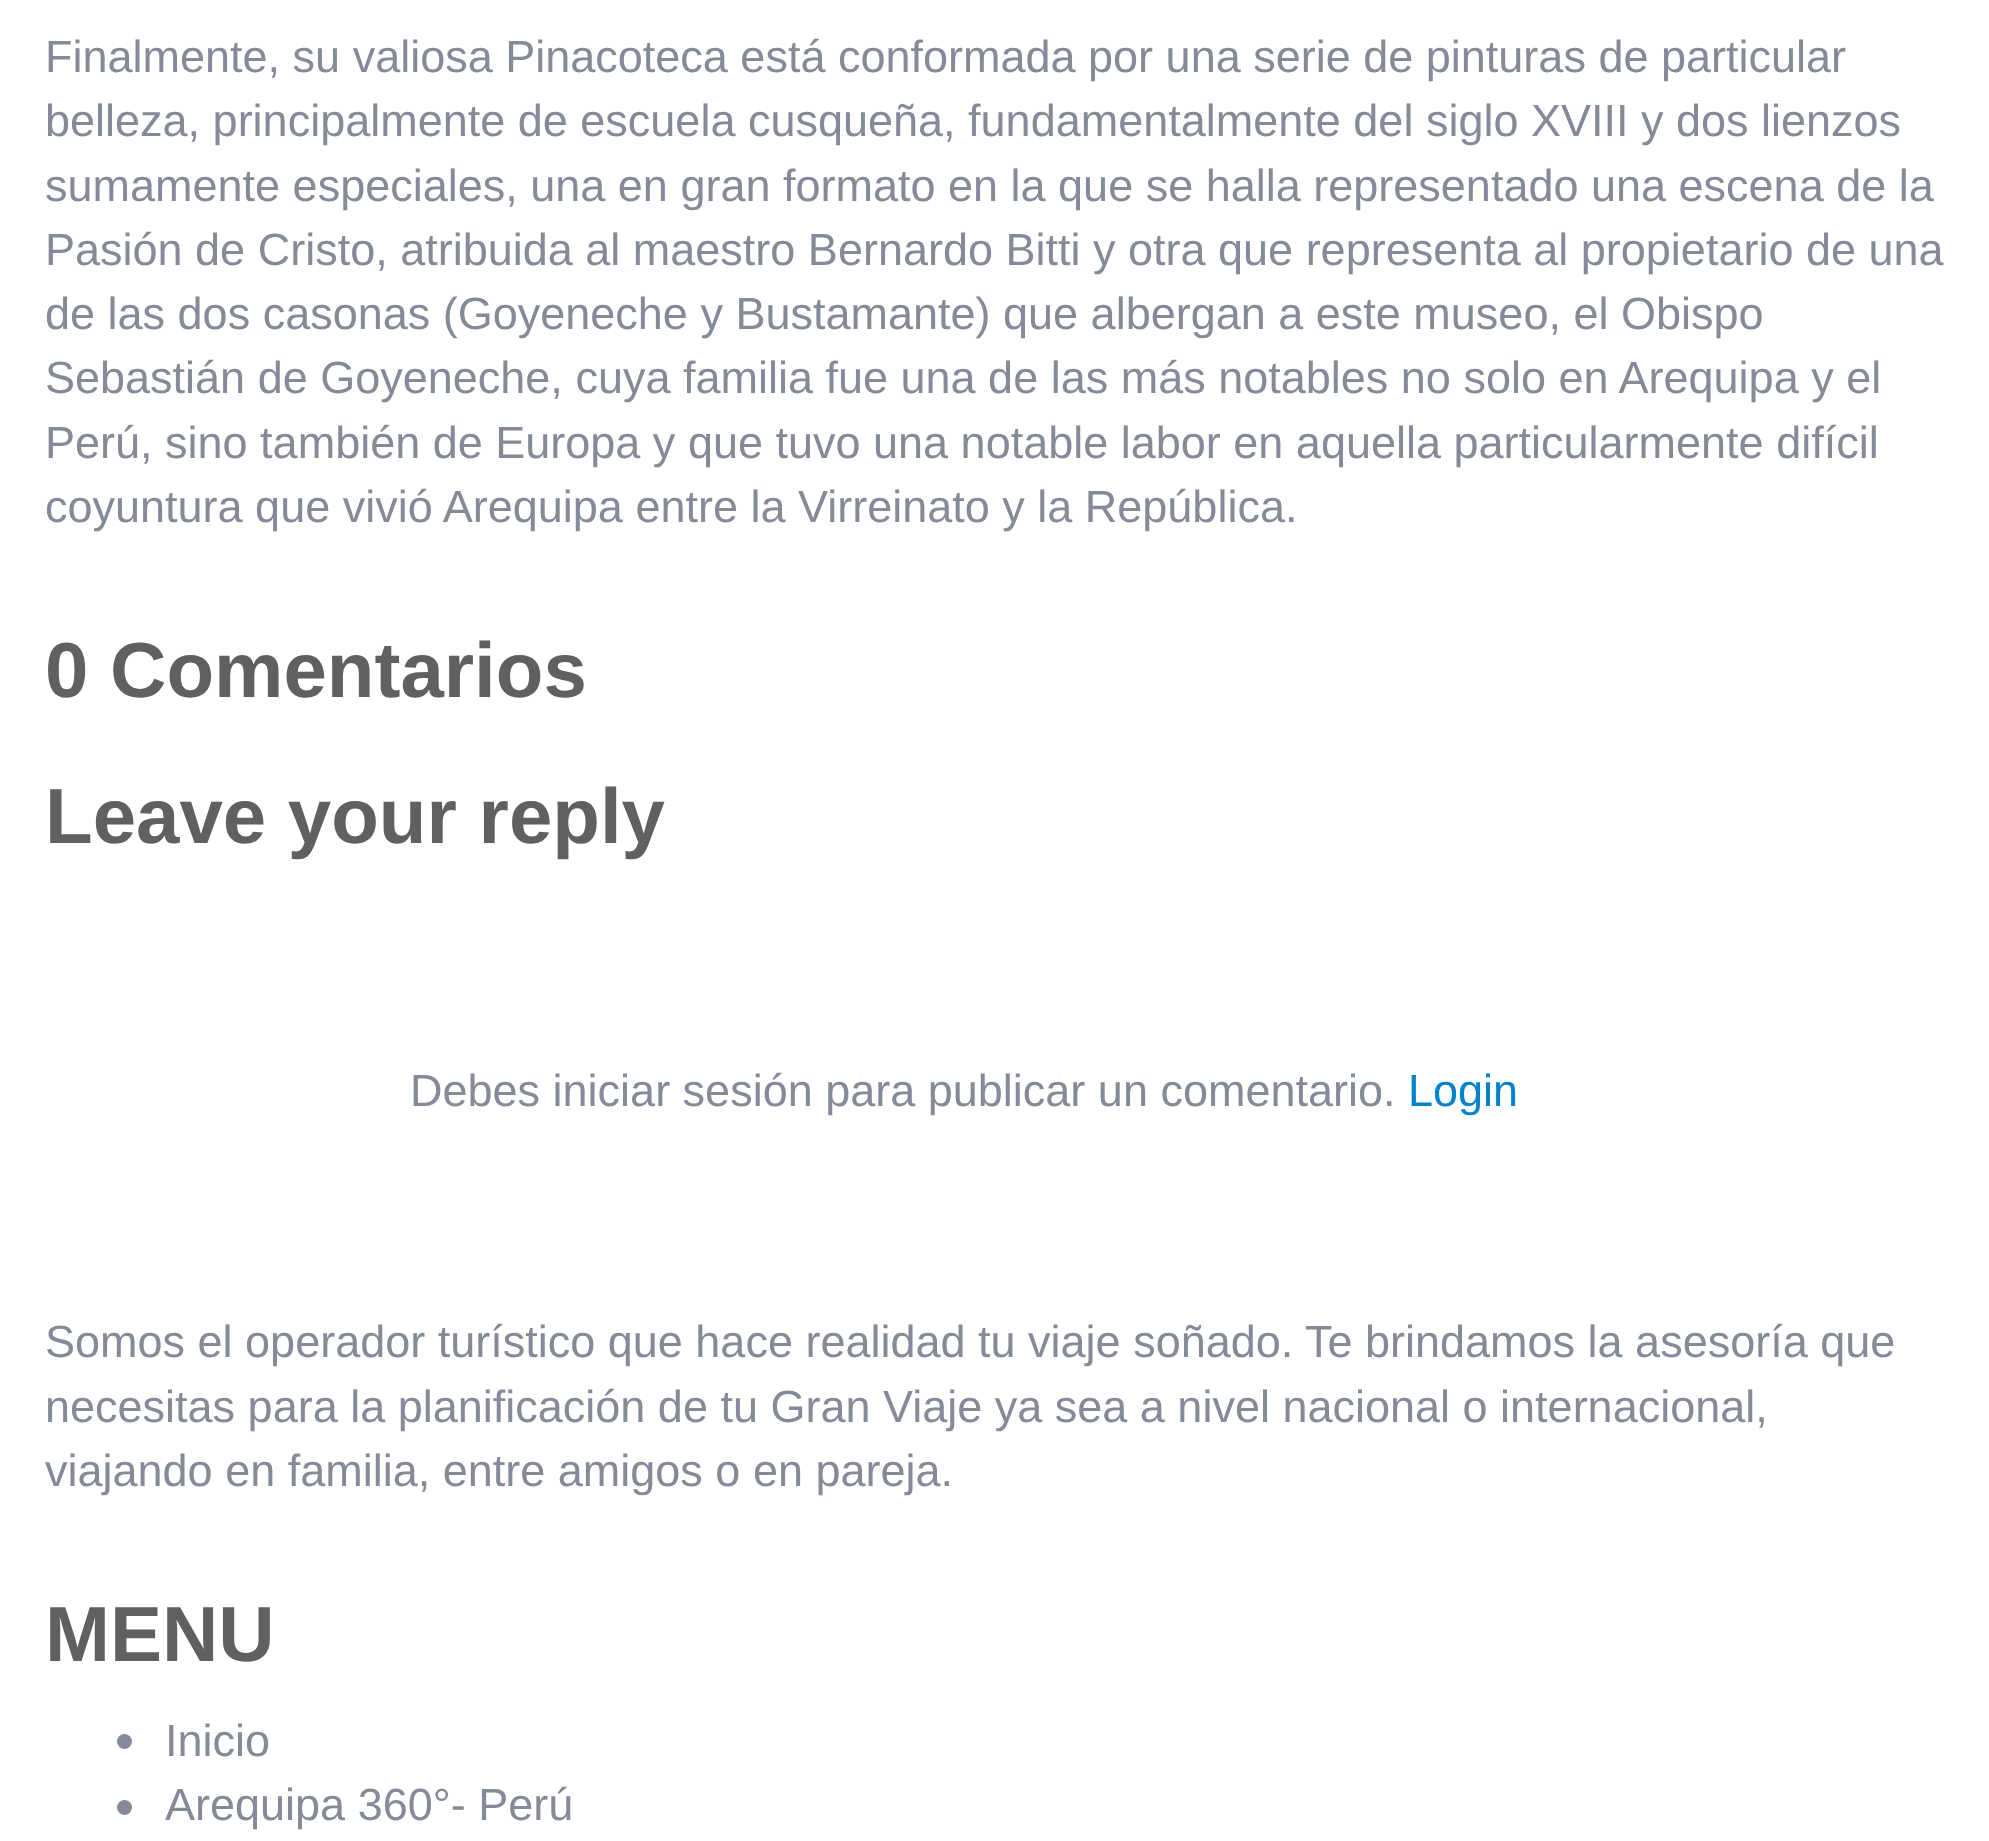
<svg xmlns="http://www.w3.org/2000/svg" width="1989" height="1841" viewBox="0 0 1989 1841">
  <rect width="100%" height="100%" fill="rgb(255,255,255)"/>
  <g font-family="Liberation Sans" font-size="45" fill="rgb(133,138,153)">
    <text>
      <tspan x="45" y="72">Finalmente, su valiosa Pinacoteca está conformada por una serie de pinturas de particular</tspan>
      <tspan x="45" y="136">belleza, principalmente de escuela cusqueña, fundamentalmente del siglo XVIII y dos lienzos</tspan>
      <tspan x="45" y="201">sumamente especiales, una en gran formato en la que se halla representado una escena de la</tspan>
      <tspan x="45" y="265">Pasión de Cristo, atribuida al maestro Bernardo Bitti y otra que representa al propietario de una</tspan>
      <tspan x="45" y="329">de las dos casonas (Goyeneche y Bustamante) que albergan a este museo, el Obispo</tspan>
      <tspan x="45" y="393">Sebastián de Goyeneche, cuya familia fue una de las más notables no solo en Arequipa y el</tspan>
      <tspan x="45" y="458">Perú, sino también de Europa y que tuvo una notable labor en aquella particularmente difícil</tspan>
      <tspan x="45" y="522">coyuntura que vivió Arequipa entre la Virreinato y la República.</tspan>
    </text>
  </g>
  <g font-family="Liberation Sans" font-size="78" font-weight="bold" fill="rgb(96,96,96)">
    <text>
      <tspan x="45" y="697">0 Comentarios</tspan>
      <tspan x="45" y="843">Leave your reply</tspan>
    </text>
  </g>
  <text x="410" y="1106" font-family="Liberation Sans" font-size="45" fill="rgb(133,138,153)">Debes iniciar sesión para publicar un comentario.</text>
  <text x="1408" y="1106" font-family="Liberation Sans" font-size="45" fill="rgb(0,131,202)">Login</text>
  <g font-family="Liberation Sans" font-size="45" fill="rgb(133,138,153)">
    <text>
      <tspan x="45" y="1357">Somos el operador turístico que hace realidad tu viaje soñado. Te brindamos la asesoría que</tspan>
      <tspan x="45" y="1422">necesitas para la planificación de tu Gran Viaje ya sea a nivel nacional o internacional,</tspan>
      <tspan x="45" y="1486">viajando en familia, entre amigos o en pareja.</tspan>
    </text>
  </g>
  <text x="45" y="1661" font-family="Liberation Sans" font-size="78" font-weight="bold" fill="rgb(96,96,96)">MENU</text>
  <circle cx="124.5" cy="1741.5" r="7.5" fill="rgb(133,138,153)"/>
  <text x="165" y="1756" font-family="Liberation Sans" font-size="45" fill="rgb(133,138,153)">Inicio</text>
  <circle cx="124.5" cy="1807.5" r="7.5" fill="rgb(133,138,153)"/>
  <text x="165" y="1820" font-family="Liberation Sans" font-size="45" fill="rgb(133,138,153)">Arequipa 360°- Perú</text>
</svg>
